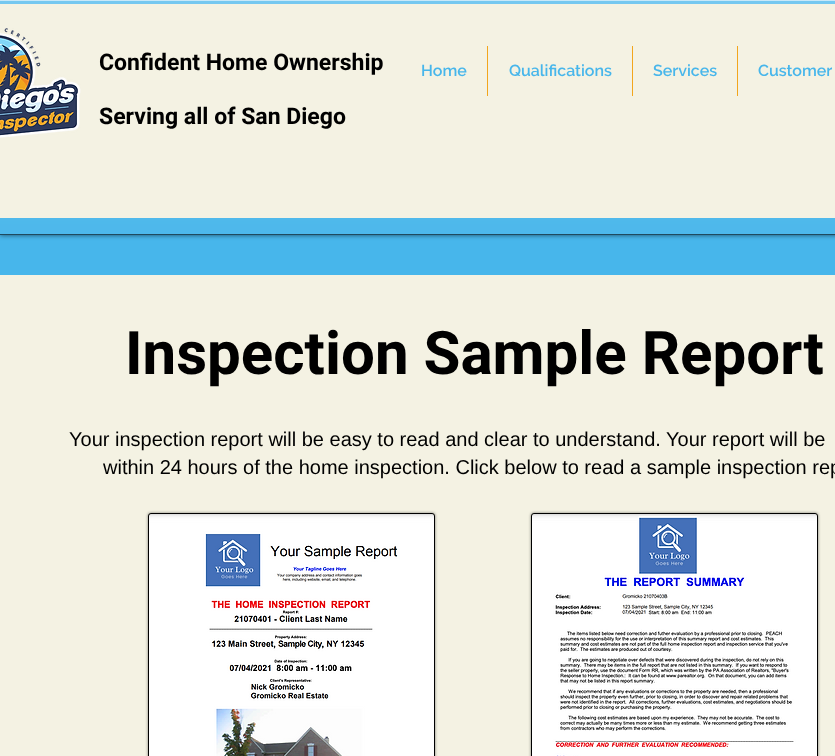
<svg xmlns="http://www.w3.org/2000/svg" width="835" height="756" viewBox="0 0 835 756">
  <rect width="100%" height="100%" fill="rgb(71,182,235)"/>
  <rect x="0" y="0" width="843" height="235" fill="rgba(0,0,0,0.6)" filter="blur(2.5px)"/>
  <rect x="0" y="1" width="835" height="233" fill="rgb(71,182,235)"/>
  <image x="0" y="1" width="835" height="233" href="pic1.png"/>
  <rect x="0" y="234" width="835" height="1" fill="rgb(31,74,94)"/>
  <rect x="0" y="0" width="835" height="1" fill="rgb(200,233,249)"/>
  <rect x="0" y="4" width="835" height="214" fill="rgb(244,242,227)"/>
  <image x="0" y="28" width="81" height="110" href="pic2.png"/>
  <g font-family="Heebo" font-size="23" font-weight="bold" fill="rgb(0,0,0)">
    <text x="99" y="70">Confident Home Ownership</text>
    <text x="99" y="124">Serving all of San Diego</text>
  </g>
  <text x="421" y="76" font-family="Raleway" font-size="16" font-weight="600" fill="rgb(71,182,235)">Home</text>
  <rect x="487" y="46" width="1" height="50" fill="rgb(242,166,29)"/>
  <text x="509" y="76" font-family="Raleway" font-size="16" font-weight="600" fill="rgb(71,182,235)">Qualifications</text>
  <rect x="632" y="46" width="1" height="50" fill="rgb(242,166,29)"/>
  <text x="653" y="76" font-family="Raleway" font-size="16" font-weight="600" fill="rgb(71,182,235)">Services</text>
  <rect x="737" y="46" width="1" height="50" fill="rgb(242,166,29)"/>
  <text x="758" y="76" font-family="Raleway" font-size="16" font-weight="600" fill="rgb(71,182,235)">Customer</text>
  <rect x="0" y="275" width="835" height="481" fill="rgb(244,242,227)"/>
  <text x="125" y="374" font-family="Heebo" font-size="60" font-weight="bold" fill="rgb(0,0,0)">Inspection Sample Report</text>
  <g font-family="Liberation Sans" font-size="20" fill="rgb(0,0,0)">
    <text x="69" y="446">Your inspection report will be easy to read and clear to understand. Your report will be</text>
    <text x="103" y="474">within 24 hours of the home inspection. Click below to read a sample inspection rep</text>
  </g>
  <rect x="148" y="513" width="287" height="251" rx="3" fill="rgba(0,0,0,0.5)" filter="blur(1.5px)"/>
  <rect x="148.5" y="513.5" width="286" height="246" rx="2.5" fill="none" stroke="rgb(0,0,0)"/>
  <image x="149" y="514" width="285" height="242" href="pic3.png"/>
  <rect x="531" y="513" width="287" height="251" rx="3" fill="rgba(0,0,0,0.5)" filter="blur(1.5px)"/>
  <rect x="531.5" y="513.5" width="286" height="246" rx="2.5" fill="none" stroke="rgb(0,0,0)"/>
  <image x="532" y="514" width="285" height="242" href="pic4.png"/>
</svg>
